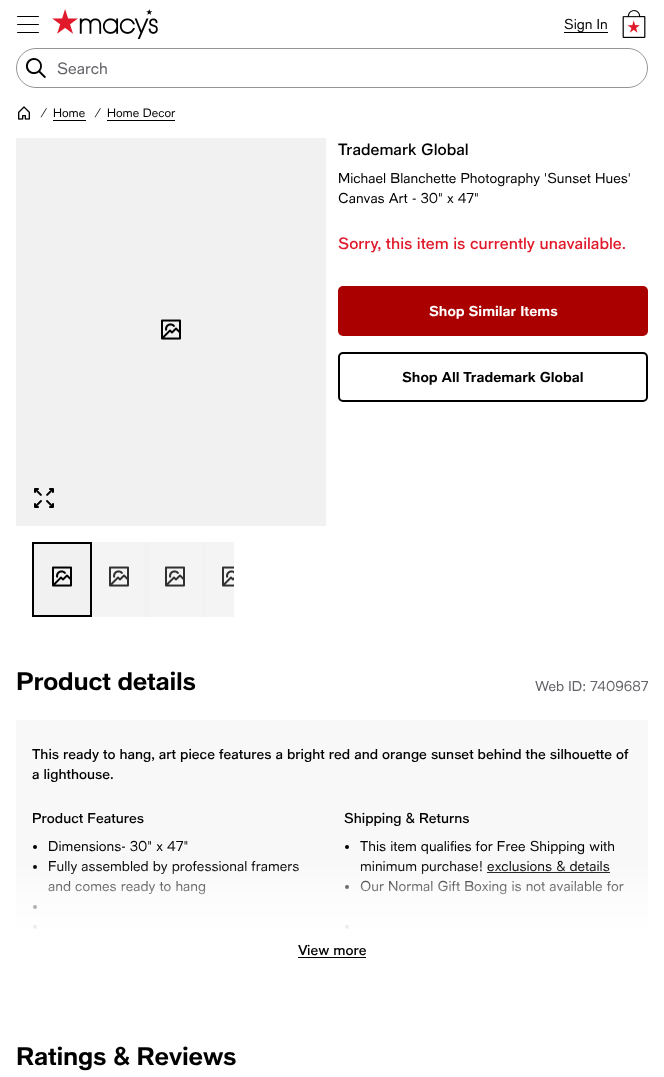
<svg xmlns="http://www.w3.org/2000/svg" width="664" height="1077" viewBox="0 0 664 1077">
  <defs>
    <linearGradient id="g1" gradientUnits="userSpaceOnUse" x1="332" y1="864" x2="332" y2="960"><stop offset="0" stop-color="rgb(255,255,255)" stop-opacity="0"/><stop offset="0.28" stop-color="rgb(255,255,255)" stop-opacity="0.5"/><stop offset="0.72" stop-color="rgb(255,255,255)"/></linearGradient>
  </defs>
  <rect width="100%" height="100%" fill="rgb(255,255,255)"/>
  <rect x="205" y="542" width="29" height="75" fill="rgb(244,244,244)"/>
  <rect x="149" y="542" width="53" height="75" fill="rgb(244,244,244)"/>
  <rect x="202" y="542" width="3" height="75" fill="rgb(242,242,242)"/>
  <rect x="92" y="542" width="53" height="75" fill="rgb(244,244,244)"/>
  <rect x="145" y="542" width="4" height="75" fill="rgb(242,242,242)"/>
  <image x="17" y="16" width="22" height="17" href="pic1.png"/>
  <image x="52" y="9" width="106" height="30" href="pic2.png"/>
  <rect x="564" y="32" width="44" height="1" fill="rgb(0,0,0)"/>
  <text x="564" y="29" font-family="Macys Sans" font-size="14" fill="rgb(0,0,0)">Sign In</text>
  <image x="622" y="10" width="24" height="28" href="pic3.png"/>
  <rect x="16.5" y="48.5" width="631" height="39" rx="19.5" fill="none" stroke="rgb(149,148,153)"/>
  <image x="25" y="58" width="21" height="20" href="pic4.png"/>
  <text x="57" y="74" font-family="Macys Sans" font-size="16" fill="rgb(98,99,105)">Search</text>
  <image x="18" y="106" width="12" height="14" href="pic5.png"/>
  <text x="40" y="117" font-family="Macys Sans" font-size="12" font-style="italic" fill="rgb(0,0,0)">/</text>
  <text x="53" y="117" font-family="Macys Sans" font-size="12" fill="rgb(0,0,0)">Home</text>
  <rect x="53" y="120" width="33" height="1" fill="rgb(0,0,0)"/>
  <text x="94" y="117" font-family="Macys Sans" font-size="12" font-style="italic" fill="rgb(0,0,0)">/</text>
  <text x="107" y="117" font-family="Macys Sans" font-size="12" fill="rgb(0,0,0)">Home Decor</text>
  <rect x="107" y="120" width="68" height="1" fill="rgb(0,0,0)"/>
  <rect x="16" y="138" width="310" height="388" fill="rgb(241,241,241)"/>
  <image x="161" y="319" width="20" height="21" href="pic6.png"/>
  <image x="34" y="488" width="20" height="20" href="pic7.png"/>
  <rect x="34" y="544" width="55" height="71" fill="rgb(241,241,241)"/>
  <rect x="89" y="542" width="1" height="75" fill="rgb(241,241,241)"/>
  <image x="52" y="566" width="20" height="21" href="pic6.png"/>
  <rect x="33" y="543" width="58" height="73" fill="none" stroke="rgb(0,0,0)" stroke-width="2"/>
  <image x="109" y="566" width="20" height="21" href="pic8.png"/>
  <image x="165" y="566" width="20" height="21" href="pic8.png"/>
  <image x="222" y="566" width="12" height="21" href="pic9.png"/>
  <text x="338" y="155" font-family="Macys Sans" font-size="16" font-weight="500" fill="rgb(0,0,0)">Trademark Global</text>
  <g font-family="Macys Sans" font-size="14" fill="rgb(0,0,0)">
    <text>
      <tspan x="338" y="183">Michael Blanchette Photography 'Sunset Hues'</tspan>
      <tspan x="338" y="203">Canvas Art - 30" x 47"</tspan>
    </text>
  </g>
  <text x="338" y="249" font-family="Macys Sans" font-size="16" font-weight="500" fill="rgb(224,26,43)">Sorry, this item is currently unavailable.</text>
  <rect x="338" y="286" width="310" height="50" rx="5" fill="rgb(171,0,0)"/>
  <text x="429" y="316" font-family="Macys Sans" font-size="14" font-weight="bold" fill="rgb(255,255,255)">Shop Similar Items</text>
  <rect x="339" y="353" width="308" height="48" rx="4" fill="none" stroke="rgb(0,0,0)" stroke-width="2"/>
  <text x="402" y="382" font-family="Macys Sans" font-size="14" font-weight="bold" fill="rgb(0,0,0)">Shop All Trademark Global</text>
  <text x="16" y="690" font-family="Macys Sans" font-size="25" font-weight="bold" letter-spacing="-0.25" fill="rgb(0,0,0)">Product details</text>
  <text x="535" y="691" font-family="Macys Sans" font-size="14" fill="rgb(98,99,105)">Web ID: 7409687</text>
  <rect x="16" y="720" width="632" height="213" fill="rgb(248,248,248)"/>
  <g font-family="Macys Sans" font-size="14" font-weight="500" fill="rgb(0,0,0)">
    <text>
      <tspan x="32" y="759">This ready to hang, art piece features a bright red and orange sunset behind the silhouette of</tspan>
      <tspan x="32" y="779">a lighthouse.</tspan>
    </text>
    <text x="32" y="823">Product Features</text>
  </g>
  <circle cx="35" cy="847" r="2" fill="rgb(0,0,0)"/>
  <text x="48" y="851" font-family="Macys Sans" font-size="14" fill="rgb(0,0,0)">Dimensions- 30" x 47"</text>
  <circle cx="35" cy="867" r="2" fill="rgb(0,0,0)"/>
  <g font-family="Macys Sans" font-size="14" fill="rgb(0,0,0)">
    <text>
      <tspan x="48" y="871">Fully assembled by professional framers</tspan>
      <tspan x="48" y="891">and comes ready to hang</tspan>
    </text>
  </g>
  <circle cx="35" cy="907" r="2" fill="rgb(0,0,0)"/>
  <circle cx="35" cy="927" r="2" fill="rgb(0,0,0)"/>
  <text x="344" y="823" font-family="Macys Sans" font-size="14" font-weight="500" fill="rgb(0,0,0)">Shipping &amp; Returns</text>
  <circle cx="347" cy="847" r="2" fill="rgb(0,0,0)"/>
  <g font-family="Macys Sans" font-size="14" fill="rgb(0,0,0)">
    <text>
      <tspan x="360" y="851">This item qualifies for Free Shipping with</tspan>
      <tspan x="360" y="871">minimum purchase! exclusions &amp; details</tspan>
    </text>
  </g>
  <rect x="487" y="872" width="123" height="1" fill="rgb(0,0,0)"/>
  <circle cx="347" cy="887" r="2" fill="rgb(0,0,0)"/>
  <text x="360" y="891" font-family="Macys Sans" font-size="14" fill="rgb(0,0,0)">Our Normal Gift Boxing is not available for</text>
  <circle cx="347" cy="927" r="2" fill="rgb(0,0,0)"/>
  <rect x="16" y="865" width="632" height="68" fill="url(#g1)"/>
  <text x="298" y="955" font-family="Macys Sans" font-size="14" font-weight="500" fill="rgb(0,0,0)">View more</text>
  <rect x="298" y="957" width="68" height="1" fill="rgb(0,0,0)"/>
  <text x="16" y="1065" font-family="Macys Sans" font-size="25" font-weight="bold" letter-spacing="-0.25" fill="rgb(0,0,0)">Ratings &amp; Reviews</text>
</svg>
